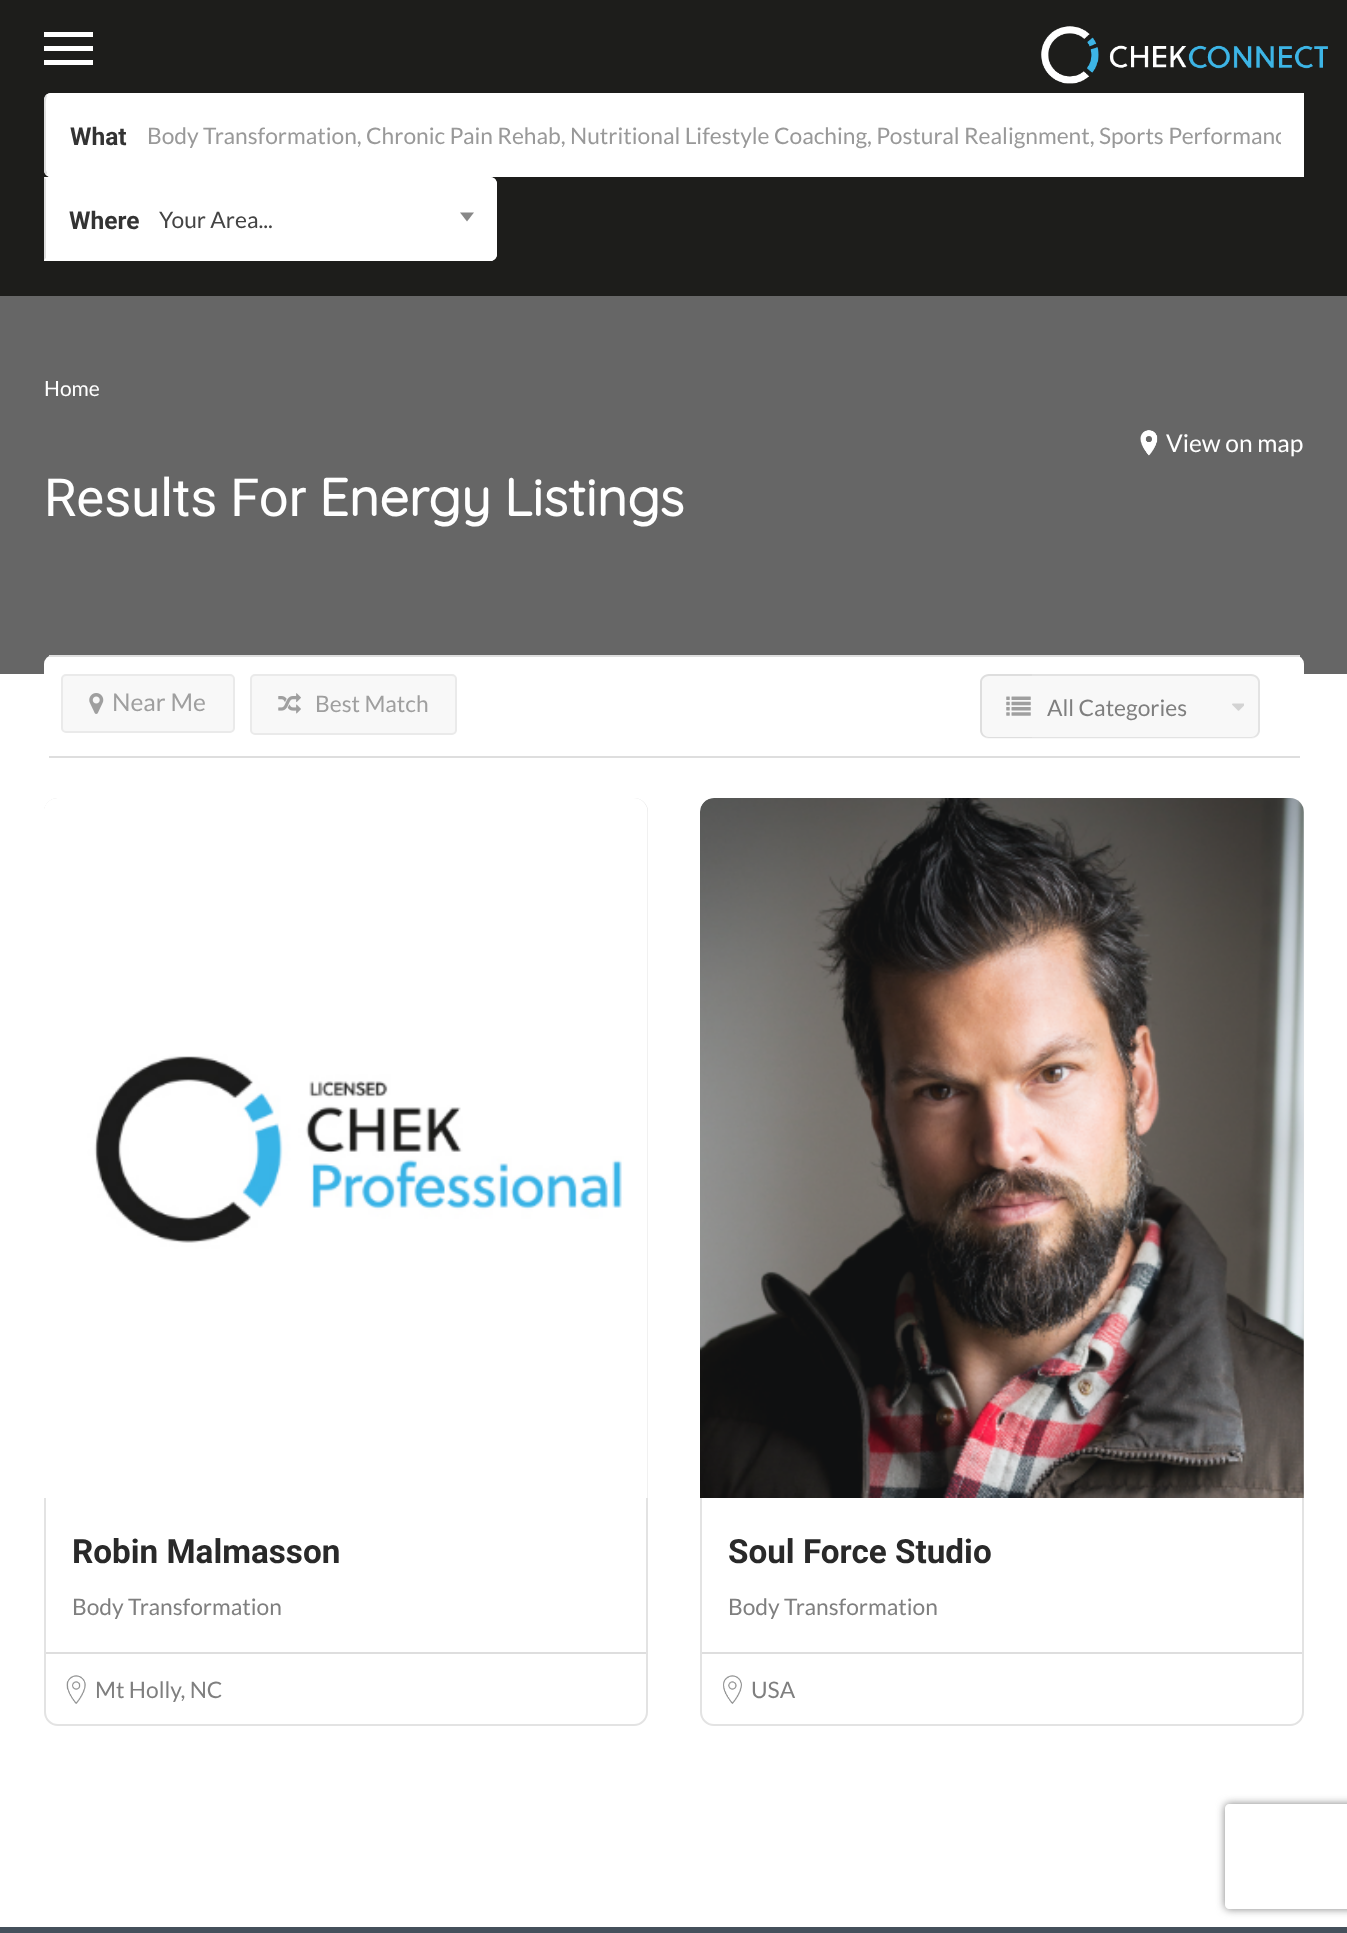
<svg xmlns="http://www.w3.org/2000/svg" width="1347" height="1933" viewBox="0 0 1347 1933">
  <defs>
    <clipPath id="clip1"><rect x="147" y="121" width="1134" height="28"/></clipPath>
    <clipPath id="clip2"><path d="M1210 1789H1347V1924H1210ZM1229 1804H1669C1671 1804 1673 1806 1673 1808V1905C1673 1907 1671 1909 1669 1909H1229C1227 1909 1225 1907 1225 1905V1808C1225 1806 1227 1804 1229 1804Z" clip-rule="evenodd"/></clipPath>
  </defs>
  <rect width="100%" height="100%" fill="rgb(255,255,255)"/>
  <rect x="0" y="0" width="1347" height="296" fill="rgb(29,29,27)"/>
  <image x="1041" y="26" width="287" height="58" href="pic1.png"/>
  <rect x="44" y="32" width="49" height="5" fill="rgb(255,255,255)"/>
  <rect x="44" y="46" width="49" height="5" fill="rgb(255,255,255)"/>
  <rect x="44" y="60" width="49" height="5" fill="rgb(255,255,255)"/>
  <path d="M51 93H1304V177H51C47 177 44 174 44 170V100C44 96 47 93 51 93Z" fill="rgb(255,255,255)"/>
  <path d="M51 93C49 93 47 94 46 95L47 96C48 95 49 94 51 94H1302L1304 93Z" fill="rgb(255,255,255)"/>
  <path d="M1304 177H49L46 175L47 173C48 174 49 175 51 175H1302Z" fill="rgb(255,255,255)"/>
  <path d="M46 95C45 96 44 98 44 100V170C44 172 45 174 46 175L47 173L46 170V112C46 110 45 100 47 96Z" fill="rgb(222,222,222)"/>
  <text x="70" y="145" font-family="Roboto" font-size="24.5" font-weight="bold" fill="rgb(51,51,51)">What</text>
  <g clip-path="url(#clip1)">
    <text x="147" y="144" font-family="Lato" font-size="22.75" fill="rgb(153,153,153)">Body Transformation, Chronic Pain Rehab, Nutritional Lifestyle Coaching, Postural Realignment, Sports Performanc</text>
  </g>
  <path d="M44 177H490C494 177 497 180 497 184V254C497 258 494 261 490 261H44Z" fill="rgb(255,255,255)"/>
  <path d="M44 177L46 179V178H490C492 178 493 179 494 180L495 179C494 178 492 177 490 177Z" fill="rgb(255,255,255)"/>
  <path d="M495 179C496 180 497 182 497 184V254C497 256 496 258 495 259L494 257L495 255V196C495 193 497 184 494 180Z" fill="rgb(255,255,255)"/>
  <path d="M44 261L46 258V259H490C492 259 493 258 494 257L495 259L492 261Z" fill="rgb(255,255,255)"/>
  <path d="M44 177V260L46 258V179Z" fill="rgb(222,222,222)"/>
  <text x="69" y="229" font-family="Roboto" font-size="24.5" font-weight="bold" fill="rgb(51,51,51)">Where</text>
  <text x="159" y="228" font-family="Lato" font-size="22.75" fill="rgb(68,68,68)">Your Area...</text>
  <path d="M460 212.5H474L467 221.5Z" fill="rgb(136,136,136)"/>
  <rect x="0" y="296" width="1347" height="378" fill="rgb(102,102,102)"/>
  <text x="44" y="396" font-family="Lato" font-size="21" fill="rgb(255,255,255)">Home</text>
  <image x="1140" y="430" width="18" height="26" href="pic2.png"/>
  <text x="1166" y="452" font-family="Lato" font-size="24.5" fill="rgb(255,255,255)">View on map</text>
  <text x="44" y="516" font-family="Roboto" font-size="52.5" fill="rgb(255,255,255)">Results For</text>
  <g font-family="Quicksand" font-size="52.5" font-weight="bold" fill="rgb(255,255,255)">
    <text x="319" y="516">Energy</text>
    <text x="504" y="516">Listings</text>
  </g>
  <rect x="44" y="655" width="1260" height="103" rx="9" fill="rgb(255,255,255)"/>
  <rect x="49" y="655" width="1251" height="2" fill="rgb(222,222,222)"/>
  <rect x="49" y="756" width="1251" height="2" fill="rgb(222,222,222)"/>
  <rect x="62" y="675" width="172" height="57" rx="4" fill="rgb(248,248,248)" stroke="rgb(234,234,234)" stroke-width="2"/>
  <image x="89" y="693" width="15" height="21" href="pic3.png"/>
  <text x="112" y="711" font-family="Lato" font-size="24.5" fill="rgb(159,159,159)">Near Me</text>
  <rect x="251" y="675" width="205" height="59" rx="4" fill="rgb(248,248,248)" stroke="rgb(234,234,234)" stroke-width="2"/>
  <image x="278" y="693" width="23" height="21" href="pic4.png"/>
  <text x="315" y="712" font-family="Lato" font-size="22.75" fill="rgb(159,159,159)">Best Match</text>
  <path d="M989 674H1033V739H989C984 739 980 735 980 730V683C980 678 984 674 989 674Z" fill="rgb(248,248,248)"/>
  <path d="M989 674H1032V738H989C984 738 980 735 980 730V682C980 678 984 674 989 674ZM989 676H1032V737H989C985 737 982 734 982 730V682C982 679 985 676 989 676Z" fill="rgb(222,222,222)" fill-rule="evenodd"/>
  <image x="1006" y="696" width="25" height="20" href="pic5.png"/>
  <path d="M1033 674H1251C1256 674 1260 678 1260 683V730C1260 735 1256 739 1251 739H1033Z" fill="rgb(248,248,248)"/>
  <path d="M1032 674H1251C1256 674 1260 678 1260 682V730C1260 735 1256 738 1251 738H1032ZM1032 676H1251C1255 676 1258 679 1258 682V730C1258 734 1255 737 1251 737H1032Z" fill="rgb(227,227,227)" fill-rule="evenodd"/>
  <text x="1047" y="716" font-family="Lato" font-size="22.75" fill="rgb(127,127,127)">All Categories</text>
  <image x="1232" y="703" width="12" height="8" href="pic6.png"/>
  <rect x="45" y="799" width="602" height="926" rx="13" fill="none" stroke="rgb(227,227,227)" stroke-width="2"/>
  <image x="44" y="798" width="604" height="700" href="pic7.png"/>
  <text x="72" y="1563" font-family="Roboto" font-size="33.25" font-weight="bold" fill="rgb(41,41,41)">Robin Malmasson</text>
  <text x="72" y="1615" font-family="Lato" font-size="22.75" fill="rgb(127,127,127)">Body Transformation</text>
  <rect x="46" y="1652" width="600" height="2" fill="rgb(222,222,222)"/>
  <image x="66" y="1675" width="20" height="29" href="pic8.png"/>
  <text x="95" y="1698" font-family="Lato" font-size="22.75" fill="rgb(127,127,127)">Mt Holly, NC</text>
  <rect x="701" y="799" width="602" height="926" rx="13" fill="none" stroke="rgb(227,227,227)" stroke-width="2"/>
  <image x="700" y="798" width="604" height="700" href="pic9.png"/>
  <text x="728" y="1563" font-family="Roboto" font-size="33.25" font-weight="bold" fill="rgb(41,41,41)">Soul Force Studio</text>
  <text x="728" y="1615" font-family="Lato" font-size="22.75" fill="rgb(127,127,127)">Body Transformation</text>
  <rect x="702" y="1652" width="600" height="2" fill="rgb(222,222,222)"/>
  <image x="723" y="1675" width="19" height="29" href="pic10.png"/>
  <text x="751" y="1698" font-family="Lato" font-size="22.75" fill="rgb(127,127,127)">USA</text>
  <rect x="0" y="1927" width="1347" height="6" fill="rgb(69,80,91)"/>
  <g clip-path="url(#clip2)">
    <rect x="1225" y="1804" width="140" height="105" rx="4" fill="rgb(128,128,128)" filter="blur(4.5px)"/>
  </g>
</svg>
